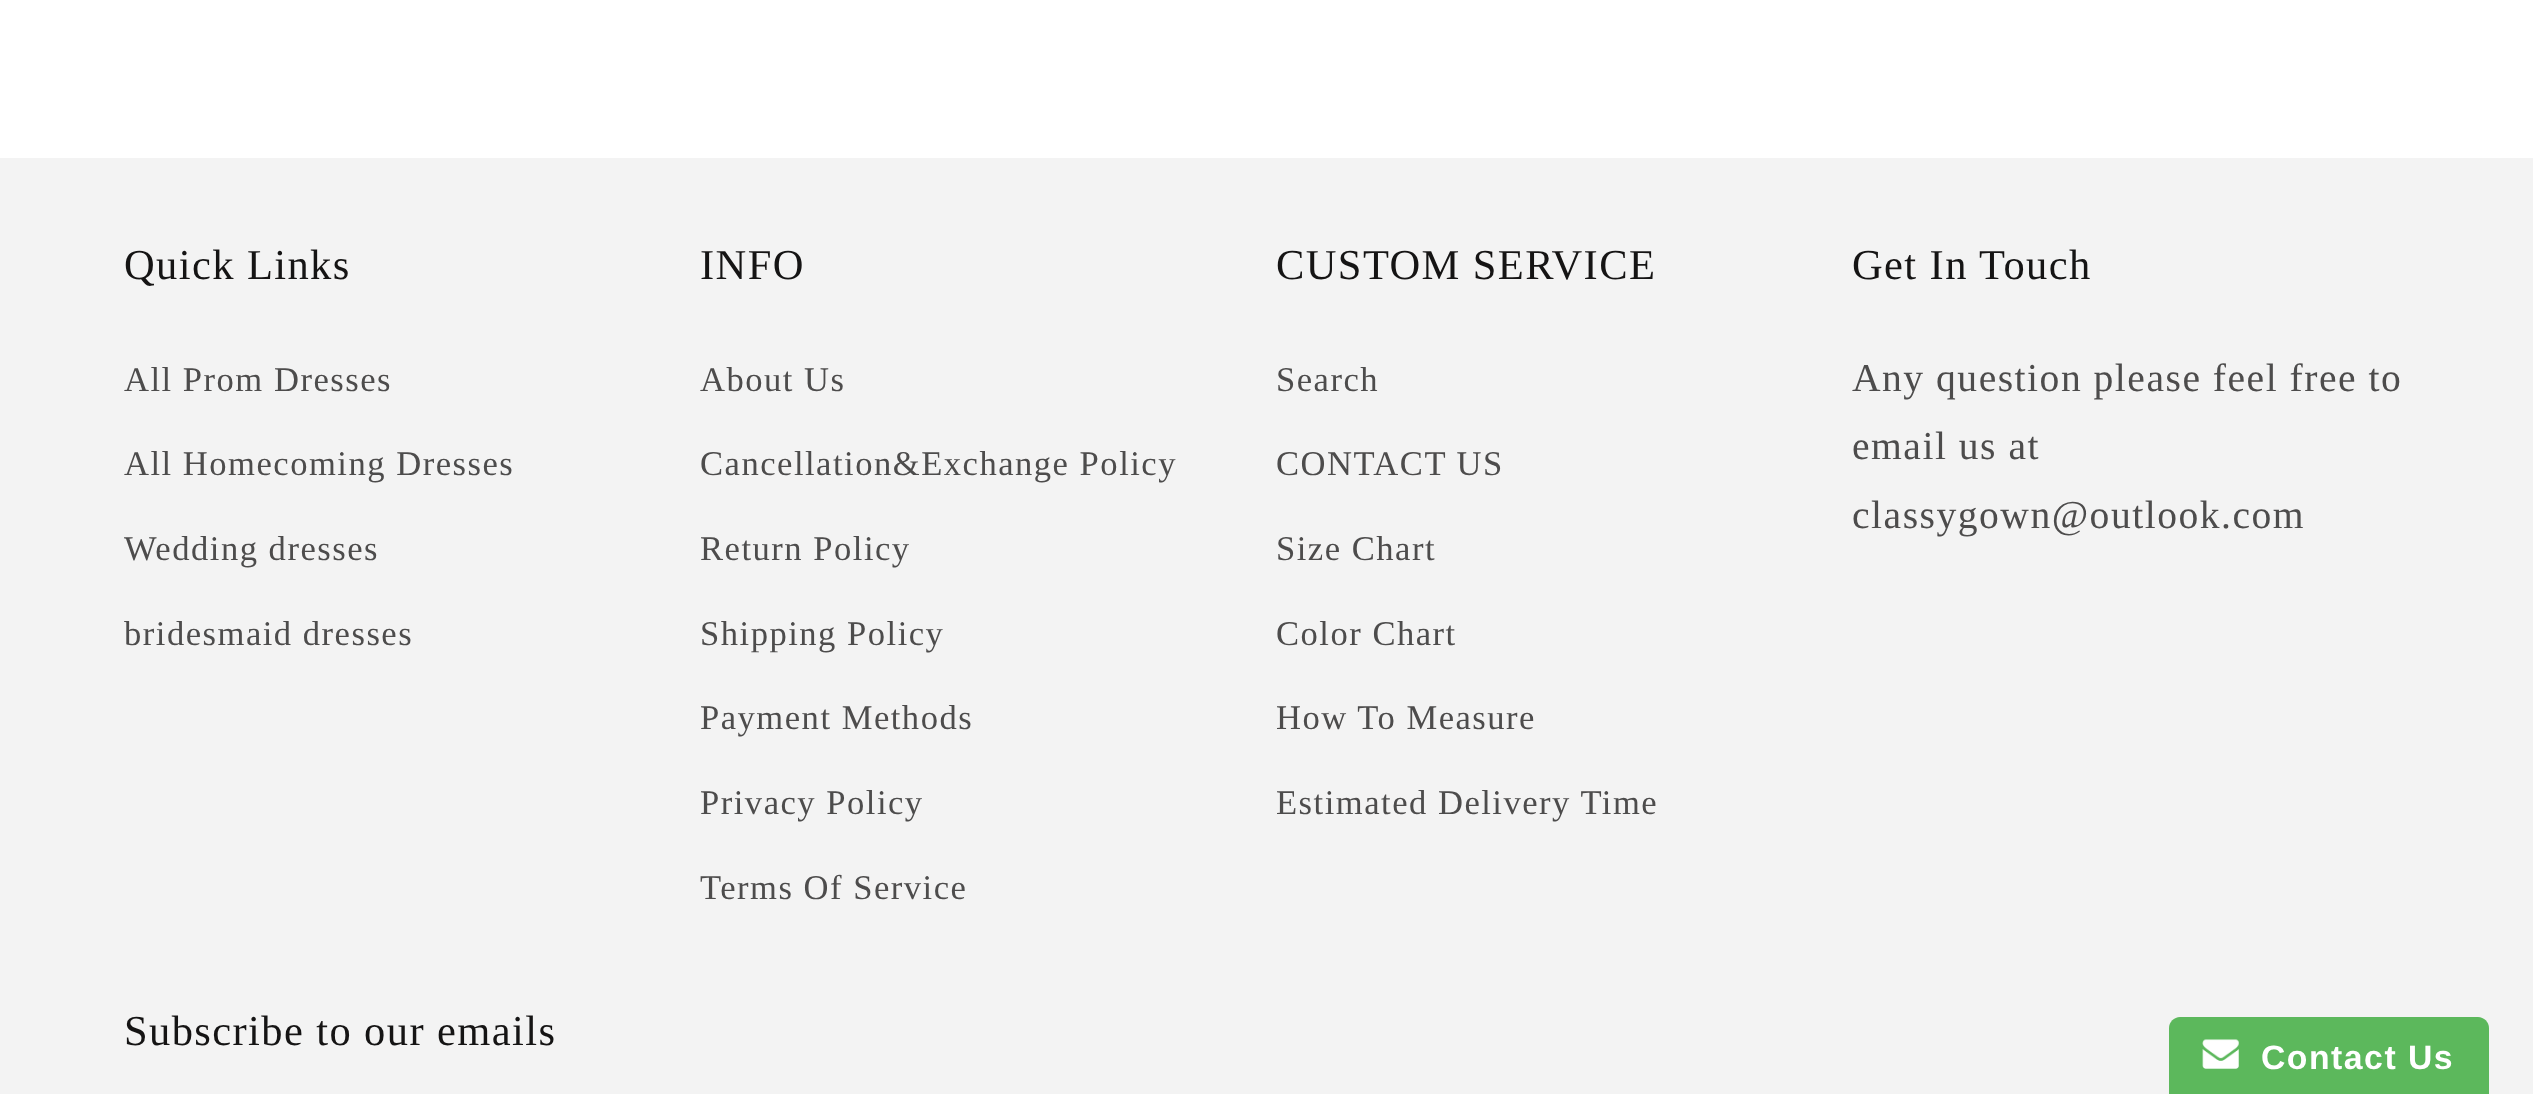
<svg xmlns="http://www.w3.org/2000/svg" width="2533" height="1094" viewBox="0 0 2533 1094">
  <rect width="100%" height="100%" fill="rgb(255,255,255)"/>
  <rect x="0" y="158" width="2533" height="936" fill="rgb(243,243,243)"/>
  <text x="124" y="279" font-family="Liberation Serif" font-size="42.5" letter-spacing="1.4" fill="rgb(21,20,20)">Quick Links</text>
  <g font-family="Liberation Serif" font-size="34.6" letter-spacing="1.5" fill="rgb(77,76,76)">
    <text x="124" y="391">All Prom Dresses</text>
    <text x="124" y="475">All Homecoming Dresses</text>
    <text x="124" y="560">Wedding dresses</text>
    <text x="124" y="645">bridesmaid dresses</text>
  </g>
  <text x="700" y="279" font-family="Liberation Serif" font-size="42.5" letter-spacing="1.4" fill="rgb(21,20,20)">INFO</text>
  <g font-family="Liberation Serif" font-size="34.6" letter-spacing="1.5" fill="rgb(77,76,76)">
    <text x="700" y="391">About Us</text>
    <text x="700" y="475">Cancellation&amp;Exchange Policy</text>
    <text x="700" y="560">Return Policy</text>
    <text x="700" y="645">Shipping Policy</text>
    <text x="700" y="729">Payment Methods</text>
    <text x="700" y="814">Privacy Policy</text>
    <text x="700" y="899">Terms Of Service</text>
  </g>
  <text x="1276" y="279" font-family="Liberation Serif" font-size="42.5" letter-spacing="1.4" fill="rgb(21,20,20)">CUSTOM SERVICE</text>
  <g font-family="Liberation Serif" font-size="34.6" letter-spacing="1.5" fill="rgb(77,76,76)">
    <text x="1276" y="391">Search</text>
    <text x="1276" y="475">CONTACT US</text>
    <text x="1276" y="560">Size Chart</text>
    <text x="1276" y="645">Color Chart</text>
    <text x="1276" y="729">How To Measure</text>
    <text x="1276" y="814">Estimated Delivery Time</text>
  </g>
  <text x="1852" y="279" font-family="Liberation Serif" font-size="42.5" letter-spacing="1.4" fill="rgb(21,20,20)">Get In Touch</text>
  <g font-family="Liberation Serif" font-size="39.6" letter-spacing="1.5" fill="rgb(77,76,76)">
    <text>
      <tspan x="1852" y="391">Any question please feel free to</tspan>
      <tspan x="1852" y="459">email us at</tspan>
      <tspan x="1852" y="528">classygown@outlook.com</tspan>
    </text>
  </g>
  <text x="124" y="1045" font-family="Liberation Serif" font-size="42.5" letter-spacing="1.4" fill="rgb(21,20,20)">Subscribe to our emails</text>
  <path d="M2180 1017H2478C2484 1017 2489 1022 2489 1028V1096H2169V1028C2169 1022 2174 1017 2180 1017Z" fill="rgb(92,184,92)"/>
  <image x="2202" y="1039" width="37" height="30" href="pic1.png"/>
  <text x="2261" y="1069" font-family="Liberation Sans" font-size="33.75" font-weight="bold" letter-spacing="1.5" fill="rgb(255,255,255)">Contact Us</text>
</svg>
